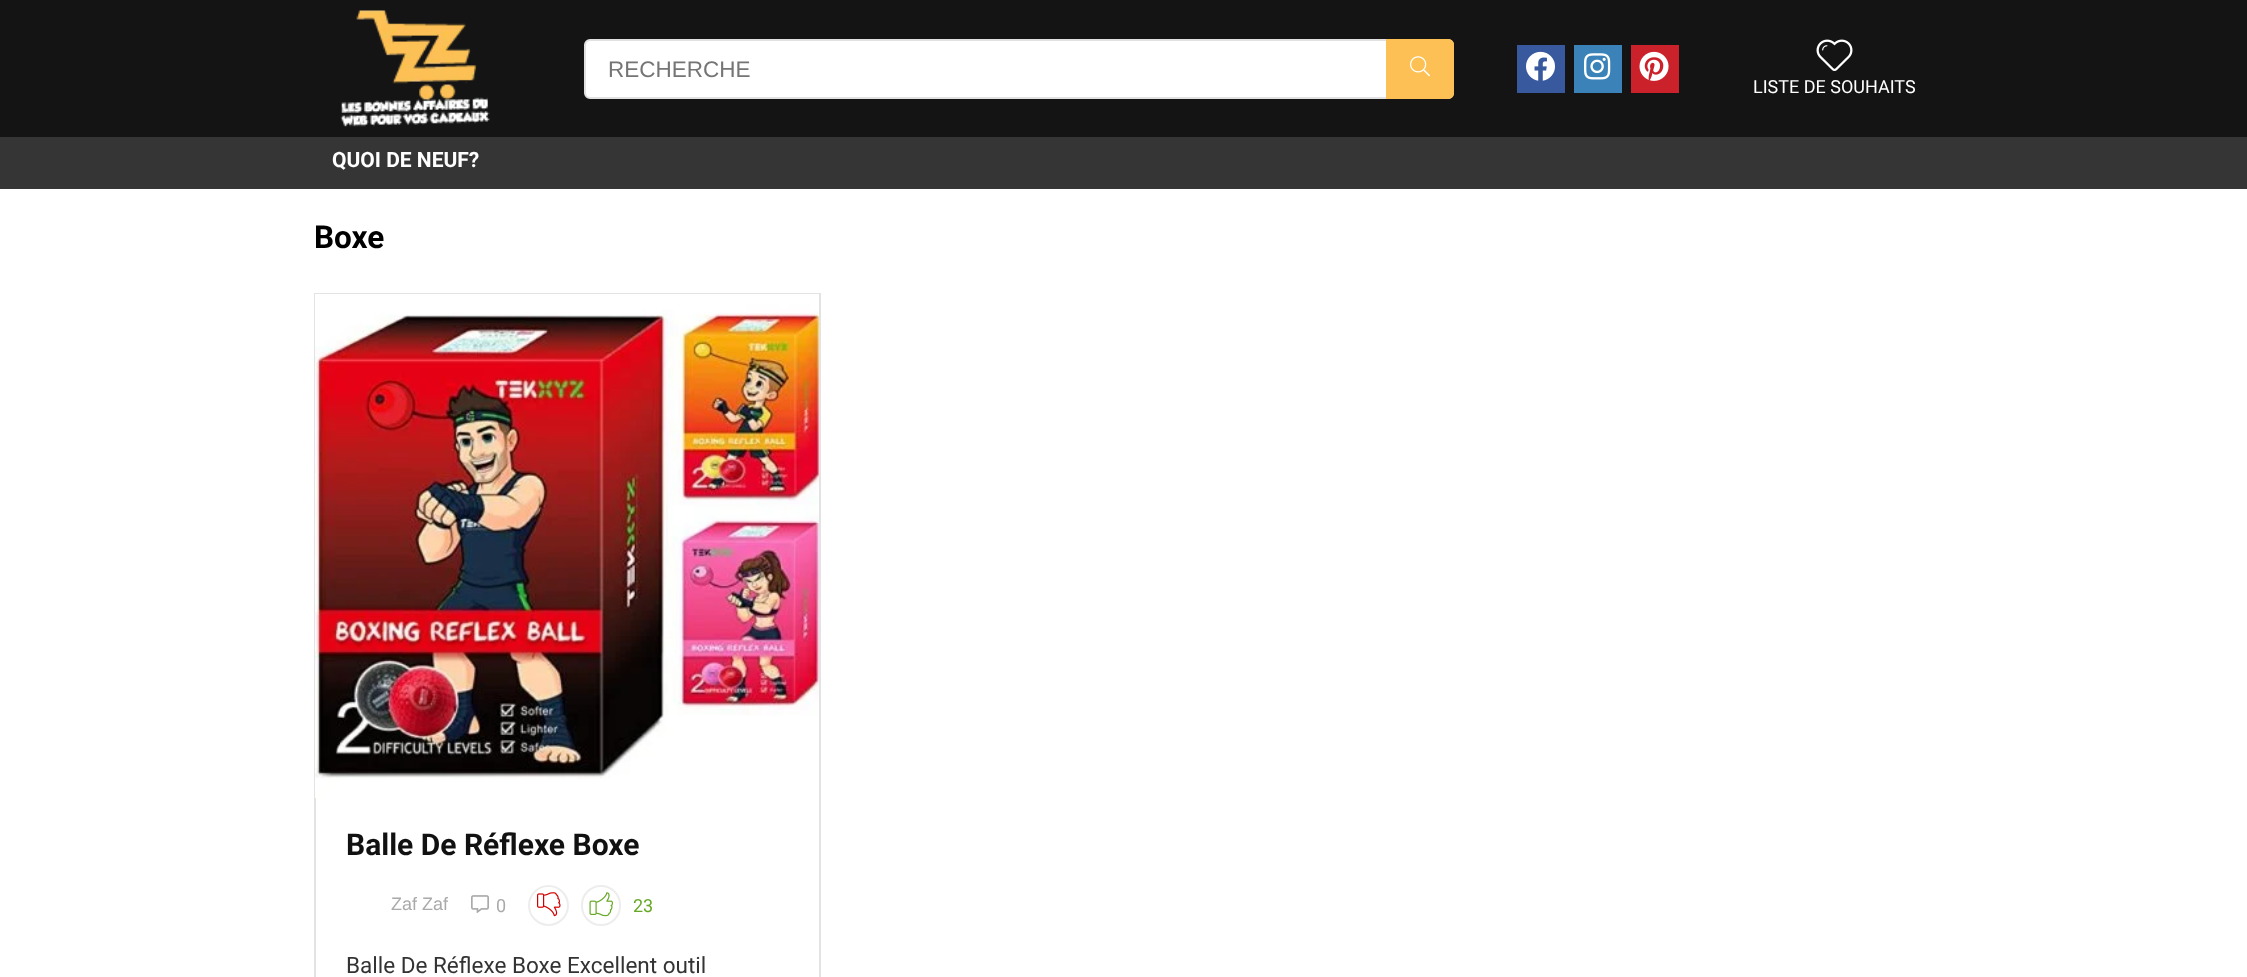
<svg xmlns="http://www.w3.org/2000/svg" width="2247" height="977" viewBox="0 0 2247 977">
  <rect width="100%" height="100%" fill="rgb(255,255,255)"/>
  <rect x="0" y="0" width="2247" height="137" fill="rgb(20,20,20)"/>
  <image x="340" y="10" width="150" height="117" href="pic1.png"/>
  <rect x="585" y="40" width="868" height="58" rx="5" fill="rgb(255,255,255)" stroke="rgb(225,225,225)" stroke-width="2"/>
  <text x="608" y="77" font-family="Liberation Sans" font-size="22.5" fill="rgb(117,117,117)">RECHERCHE</text>
  <path d="M1386 39H1448C1451.5 39 1454 41.5 1454 45V93C1454 96.5 1451.5 99 1448 99H1386Z" fill="rgb(252,192,84)"/>
  <image x="1410" y="56" width="20" height="21" href="pic2.png"/>
  <rect x="1517" y="45" width="48" height="48" fill="rgb(57,89,159)"/>
  <image x="1526" y="51" width="29" height="30" href="pic3.png"/>
  <rect x="1574" y="45" width="48" height="48" fill="rgb(58,130,184)"/>
  <image x="1584" y="53" width="27" height="27" href="pic4.png"/>
  <rect x="1631" y="45" width="48" height="48" fill="rgb(202,33,42)"/>
  <image x="1639" y="51" width="30" height="30" href="pic5.png"/>
  <image x="1816" y="39" width="37" height="32" href="pic6.png"/>
  <text x="1753" y="93" font-family="Roboto" font-size="18" fill="rgb(255,255,255)">LISTE DE SOUHAITS</text>
  <rect x="0" y="137" width="2247" height="52" fill="rgb(53,53,53)"/>
  <text x="332" y="167" font-family="Roboto" font-size="21" font-weight="bold" fill="rgb(255,255,255)">QUOI DE NEUF?</text>
  <text x="314" y="248" font-family="Roboto" font-size="31.5" font-weight="bold" fill="rgb(0,0,0)">Boxe</text>
  <rect x="315" y="294" width="505" height="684" fill="none" stroke="rgb(227,227,227)" stroke-width="2"/>
  <image x="315" y="294" width="504" height="504" href="pic7.png"/>
  <text x="346" y="855" font-family="Roboto" font-size="30" font-weight="bold" fill="rgb(17,17,17)">Balle De Réflexe Boxe</text>
  <text x="391" y="910" font-family="Liberation Sans" font-size="18" fill="rgb(170,170,170)">Zaf Zaf</text>
  <image x="471" y="895" width="18" height="18" href="pic8.png"/>
  <text x="496" y="912" font-family="Roboto" font-size="18" fill="rgb(170,170,170)">0</text>
  <circle cx="548.5" cy="905.5" r="19.5" fill="none" stroke="rgb(237,237,237)" stroke-width="2"/>
  <image x="537" y="892" width="24" height="25" href="pic9.png"/>
  <rect x="582" y="886" width="38" height="39" rx="19" fill="none" stroke="rgb(237,237,237)" stroke-width="2"/>
  <image x="589" y="892" width="24" height="25" href="pic10.png"/>
  <text x="633" y="912" font-family="Roboto" font-size="18" fill="rgb(103,168,39)">23</text>
  <text x="346" y="973" font-family="Roboto" font-size="22.5" fill="rgb(51,51,51)">Balle De Réflexe Boxe Excellent outil</text>
</svg>
